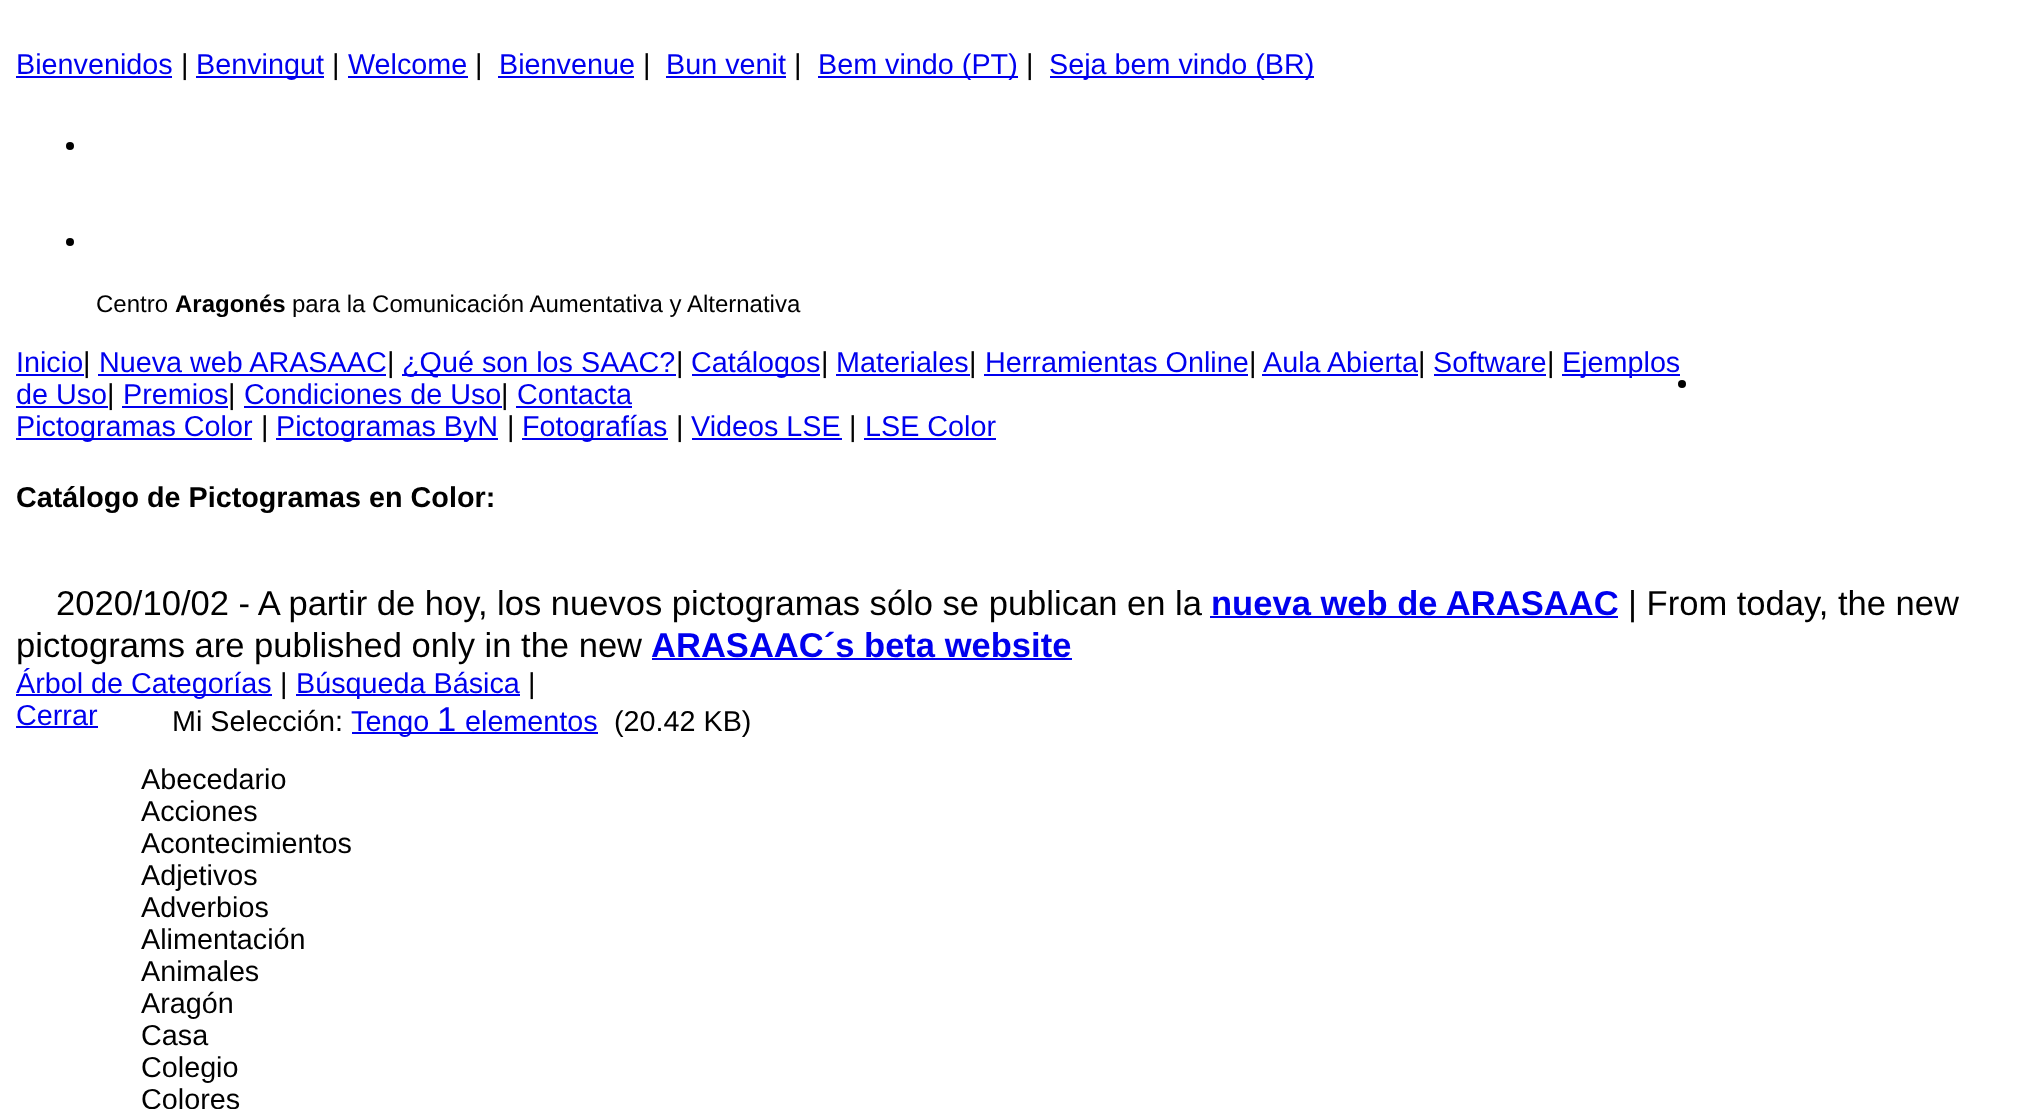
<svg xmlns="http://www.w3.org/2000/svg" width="2040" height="1109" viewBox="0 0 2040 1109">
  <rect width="100%" height="100%" fill="rgb(255,255,255)"/>
  <text x="16" y="74" font-family="Liberation Sans" font-size="28.75" fill="rgb(0,0,238)">Bienvenidos</text>
  <rect x="16" y="76" width="156" height="2" fill="rgb(0,0,238)"/>
  <text x="181" y="74" font-family="Liberation Sans" font-size="28.75" fill="rgb(0,0,0)">|</text>
  <rect x="196" y="76" width="128" height="2" fill="rgb(0,0,238)"/>
  <text x="196" y="74" font-family="Liberation Sans" font-size="28.75" fill="rgb(0,0,238)">Benvingut</text>
  <text x="332" y="74" font-family="Liberation Sans" font-size="28.75" fill="rgb(0,0,0)">|</text>
  <text x="348" y="74" font-family="Liberation Sans" font-size="28.75" fill="rgb(0,0,238)">Welcome</text>
  <rect x="348" y="76" width="120" height="2" fill="rgb(0,0,238)"/>
  <text x="475" y="74" font-family="Liberation Sans" font-size="28.75" fill="rgb(0,0,0)">|</text>
  <text x="499" y="74" font-family="Liberation Sans" font-size="28.75" fill="rgb(0,0,238)">Bienvenue</text>
  <rect x="498" y="76" width="136" height="2" fill="rgb(0,0,238)"/>
  <text x="643" y="74" font-family="Liberation Sans" font-size="28.75" fill="rgb(0,0,0)">|</text>
  <text x="666" y="74" font-family="Liberation Sans" font-size="28.75" fill="rgb(0,0,238)">Bun venit</text>
  <rect x="666" y="76" width="120" height="2" fill="rgb(0,0,238)"/>
  <text x="794" y="74" font-family="Liberation Sans" font-size="28.75" fill="rgb(0,0,0)">|</text>
  <rect x="818" y="76" width="200" height="2" fill="rgb(0,0,238)"/>
  <text x="818" y="74" font-family="Liberation Sans" font-size="28.75" fill="rgb(0,0,238)">Bem vindo (PT)</text>
  <text x="1026" y="74" font-family="Liberation Sans" font-size="28.75" fill="rgb(0,0,0)">|</text>
  <rect x="1050" y="76" width="264" height="2" fill="rgb(0,0,238)"/>
  <text x="1049" y="74" font-family="Liberation Sans" font-size="28.75" fill="rgb(0,0,238)">Seja bem vindo (BR)</text>
  <circle cx="70" cy="146" r="4" fill="rgb(0,0,0)"/>
  <circle cx="70" cy="242" r="4" fill="rgb(0,0,0)"/>
  <text x="96" y="312" font-family="Liberation Sans" font-size="24" fill="rgb(0,0,0)">Centro</text>
  <text x="175" y="312" font-family="Liberation Sans" font-size="24" font-weight="bold" fill="rgb(0,0,0)">Aragonés</text>
  <text x="292" y="312" font-family="Liberation Sans" font-size="24" fill="rgb(0,0,0)">para la Comunicación Aumentativa y Alternativa</text>
  <circle cx="1682" cy="384" r="4" fill="rgb(0,0,0)"/>
  <text x="16" y="372" font-family="Liberation Sans" font-size="28.75" fill="rgb(0,0,238)">Inicio</text>
  <rect x="16" y="374" width="68" height="2" fill="rgb(0,0,238)"/>
  <text x="83" y="372" font-family="Liberation Sans" font-size="28.75" fill="rgb(0,0,0)">|</text>
  <text x="99" y="372" font-family="Liberation Sans" font-size="28.75" fill="rgb(0,0,238)">Nueva web ARASAAC</text>
  <rect x="98" y="374" width="288" height="2" fill="rgb(0,0,238)"/>
  <text x="387" y="372" font-family="Liberation Sans" font-size="28.75" fill="rgb(0,0,0)">|</text>
  <rect x="402" y="374" width="274" height="2" fill="rgb(0,0,238)"/>
  <text x="402" y="372" font-family="Liberation Sans" font-size="28.75" fill="rgb(0,0,238)">¿Qué son los SAAC?</text>
  <text x="676" y="372" font-family="Liberation Sans" font-size="28.75" fill="rgb(0,0,0)">|</text>
  <rect x="692" y="374" width="128" height="2" fill="rgb(0,0,238)"/>
  <text x="691" y="372" font-family="Liberation Sans" font-size="28.75" fill="rgb(0,0,238)">Catálogos</text>
  <text x="821" y="372" font-family="Liberation Sans" font-size="28.75" fill="rgb(0,0,0)">|</text>
  <text x="836" y="372" font-family="Liberation Sans" font-size="28.75" fill="rgb(0,0,238)">Materiales</text>
  <rect x="836" y="374" width="134" height="2" fill="rgb(0,0,238)"/>
  <text x="969" y="372" font-family="Liberation Sans" font-size="28.75" fill="rgb(0,0,0)">|</text>
  <text x="985" y="372" font-family="Liberation Sans" font-size="28.75" fill="rgb(0,0,238)">Herramientas Online</text>
  <rect x="984" y="374" width="264" height="2" fill="rgb(0,0,238)"/>
  <text x="1249" y="372" font-family="Liberation Sans" font-size="28.75" fill="rgb(0,0,0)">|</text>
  <text x="1263" y="372" font-family="Liberation Sans" font-size="28.75" fill="rgb(0,0,238)">Aula Abierta</text>
  <rect x="1262" y="374" width="156" height="2" fill="rgb(0,0,238)"/>
  <text x="1418" y="372" font-family="Liberation Sans" font-size="28.75" fill="rgb(0,0,0)">|</text>
  <text x="1433" y="372" font-family="Liberation Sans" font-size="28.75" fill="rgb(0,0,238)">Software</text>
  <rect x="1434" y="374" width="112" height="2" fill="rgb(0,0,238)"/>
  <text x="1547" y="372" font-family="Liberation Sans" font-size="28.75" fill="rgb(0,0,0)">|</text>
  <rect x="1562" y="374" width="118" height="2" fill="rgb(0,0,238)"/>
  <g font-family="Liberation Sans" font-size="28.75" fill="rgb(0,0,238)">
    <text x="1562" y="372">Ejemplos</text>
    <text x="16" y="404">de Uso</text>
  </g>
  <rect x="16" y="406" width="92" height="2" fill="rgb(0,0,238)"/>
  <text x="107" y="404" font-family="Liberation Sans" font-size="28.75" fill="rgb(0,0,0)">|</text>
  <text x="123" y="404" font-family="Liberation Sans" font-size="28.75" fill="rgb(0,0,238)">Premios</text>
  <rect x="122" y="406" width="106" height="2" fill="rgb(0,0,238)"/>
  <text x="228" y="404" font-family="Liberation Sans" font-size="28.75" fill="rgb(0,0,0)">|</text>
  <text x="244" y="404" font-family="Liberation Sans" font-size="28.75" fill="rgb(0,0,238)">Condiciones de Uso</text>
  <rect x="244" y="406" width="258" height="2" fill="rgb(0,0,238)"/>
  <text x="501" y="404" font-family="Liberation Sans" font-size="28.75" fill="rgb(0,0,0)">|</text>
  <text x="517" y="404" font-family="Liberation Sans" font-size="28.75" fill="rgb(0,0,238)">Contacta</text>
  <rect x="516" y="406" width="116" height="2" fill="rgb(0,0,238)"/>
  <rect x="16" y="438" width="236" height="2" fill="rgb(0,0,238)"/>
  <text x="16" y="436" font-family="Liberation Sans" font-size="28.75" fill="rgb(0,0,238)">Pictogramas Color</text>
  <text x="261" y="436" font-family="Liberation Sans" font-size="28.75" fill="rgb(0,0,0)">|</text>
  <rect x="276" y="438" width="222" height="2" fill="rgb(0,0,238)"/>
  <text x="276" y="436" font-family="Liberation Sans" font-size="28.75" fill="rgb(0,0,238)">Pictogramas ByN</text>
  <text x="507" y="436" font-family="Liberation Sans" font-size="28.75" fill="rgb(0,0,0)">|</text>
  <rect x="522" y="438" width="146" height="2" fill="rgb(0,0,238)"/>
  <text x="522" y="436" font-family="Liberation Sans" font-size="28.75" fill="rgb(0,0,238)">Fotografías</text>
  <text x="676" y="436" font-family="Liberation Sans" font-size="28.75" fill="rgb(0,0,0)">|</text>
  <text x="691" y="436" font-family="Liberation Sans" font-size="28.75" fill="rgb(0,0,238)">Videos LSE</text>
  <rect x="692" y="438" width="150" height="2" fill="rgb(0,0,238)"/>
  <text x="849" y="436" font-family="Liberation Sans" font-size="28.75" fill="rgb(0,0,0)">|</text>
  <text x="865" y="436" font-family="Liberation Sans" font-size="28.75" fill="rgb(0,0,238)">LSE Color</text>
  <rect x="864" y="438" width="132" height="2" fill="rgb(0,0,238)"/>
  <text x="16" y="507" font-family="Liberation Sans" font-size="28.75" font-weight="bold" fill="rgb(0,0,0)">Catálogo de Pictogramas en Color:</text>
  <text x="56" y="615" font-family="Liberation Sans" font-size="34.55" fill="rgb(0,0,0)">2020/10/02 - A partir de hoy, los nuevos pictogramas sólo se publican en la</text>
  <text x="1211" y="615" font-family="Liberation Sans" font-size="34.55" font-weight="bold" fill="rgb(0,0,238)">nueva web de ARASAAC</text>
  <rect x="1210" y="616" width="408" height="2" fill="rgb(0,0,238)"/>
  <g font-family="Liberation Sans" font-size="34.55" fill="rgb(0,0,0)">
    <text x="1628" y="615">| From today, the new</text>
    <text x="16" y="657">pictograms are published only in the new</text>
  </g>
  <text x="651" y="657" font-family="Liberation Sans" font-size="34.55" font-weight="bold" fill="rgb(0,0,238)">ARASAAC´s beta website</text>
  <rect x="652" y="658" width="420" height="2" fill="rgb(0,0,238)"/>
  <rect x="16" y="694" width="256" height="2" fill="rgb(0,0,238)"/>
  <text x="16" y="693" font-family="Liberation Sans" font-size="28.75" fill="rgb(0,0,238)">Árbol de Categorías</text>
  <text x="280" y="693" font-family="Liberation Sans" font-size="28.75" fill="rgb(0,0,0)">|</text>
  <rect x="296" y="694" width="224" height="2" fill="rgb(0,0,238)"/>
  <text x="296" y="693" font-family="Liberation Sans" font-size="28.75" fill="rgb(0,0,238)">Búsqueda Básica</text>
  <g font-family="Liberation Sans" font-size="28.75" fill="rgb(0,0,0)">
    <text x="528" y="693">|</text>
    <text x="172" y="731">Mi Selección:</text>
  </g>
  <rect x="352" y="732" width="246" height="2" fill="rgb(0,0,238)"/>
  <text x="351" y="731" font-family="Liberation Sans" font-size="28.75" fill="rgb(0,0,238)">Tengo</text>
  <text x="437" y="731" font-family="Liberation Sans" font-size="34.55" fill="rgb(0,0,238)">1</text>
  <text x="465" y="731" font-family="Liberation Sans" font-size="28.75" fill="rgb(0,0,238)">elementos</text>
  <text x="614" y="731" font-family="Liberation Sans" font-size="28.75" fill="rgb(0,0,0)">(20.42 KB)</text>
  <text x="16" y="725" font-family="Liberation Sans" font-size="28.75" fill="rgb(0,0,238)">Cerrar</text>
  <rect x="16" y="726" width="82" height="2" fill="rgb(0,0,238)"/>
  <g font-family="Liberation Sans" font-size="28.75" fill="rgb(0,0,0)">
    <text>
      <tspan x="141" y="789">Abecedario</tspan>
      <tspan x="141" y="821">Acciones</tspan>
      <tspan x="141" y="853">Acontecimientos</tspan>
      <tspan x="141" y="885">Adjetivos</tspan>
      <tspan x="141" y="917">Adverbios</tspan>
      <tspan x="141" y="949">Alimentación</tspan>
      <tspan x="141" y="981">Animales</tspan>
      <tspan x="141" y="1013">Aragón</tspan>
      <tspan x="141" y="1045">Casa</tspan>
      <tspan x="141" y="1077">Colegio</tspan>
      <tspan x="141" y="1109">Colores</tspan>
    </text>
  </g>
</svg>
